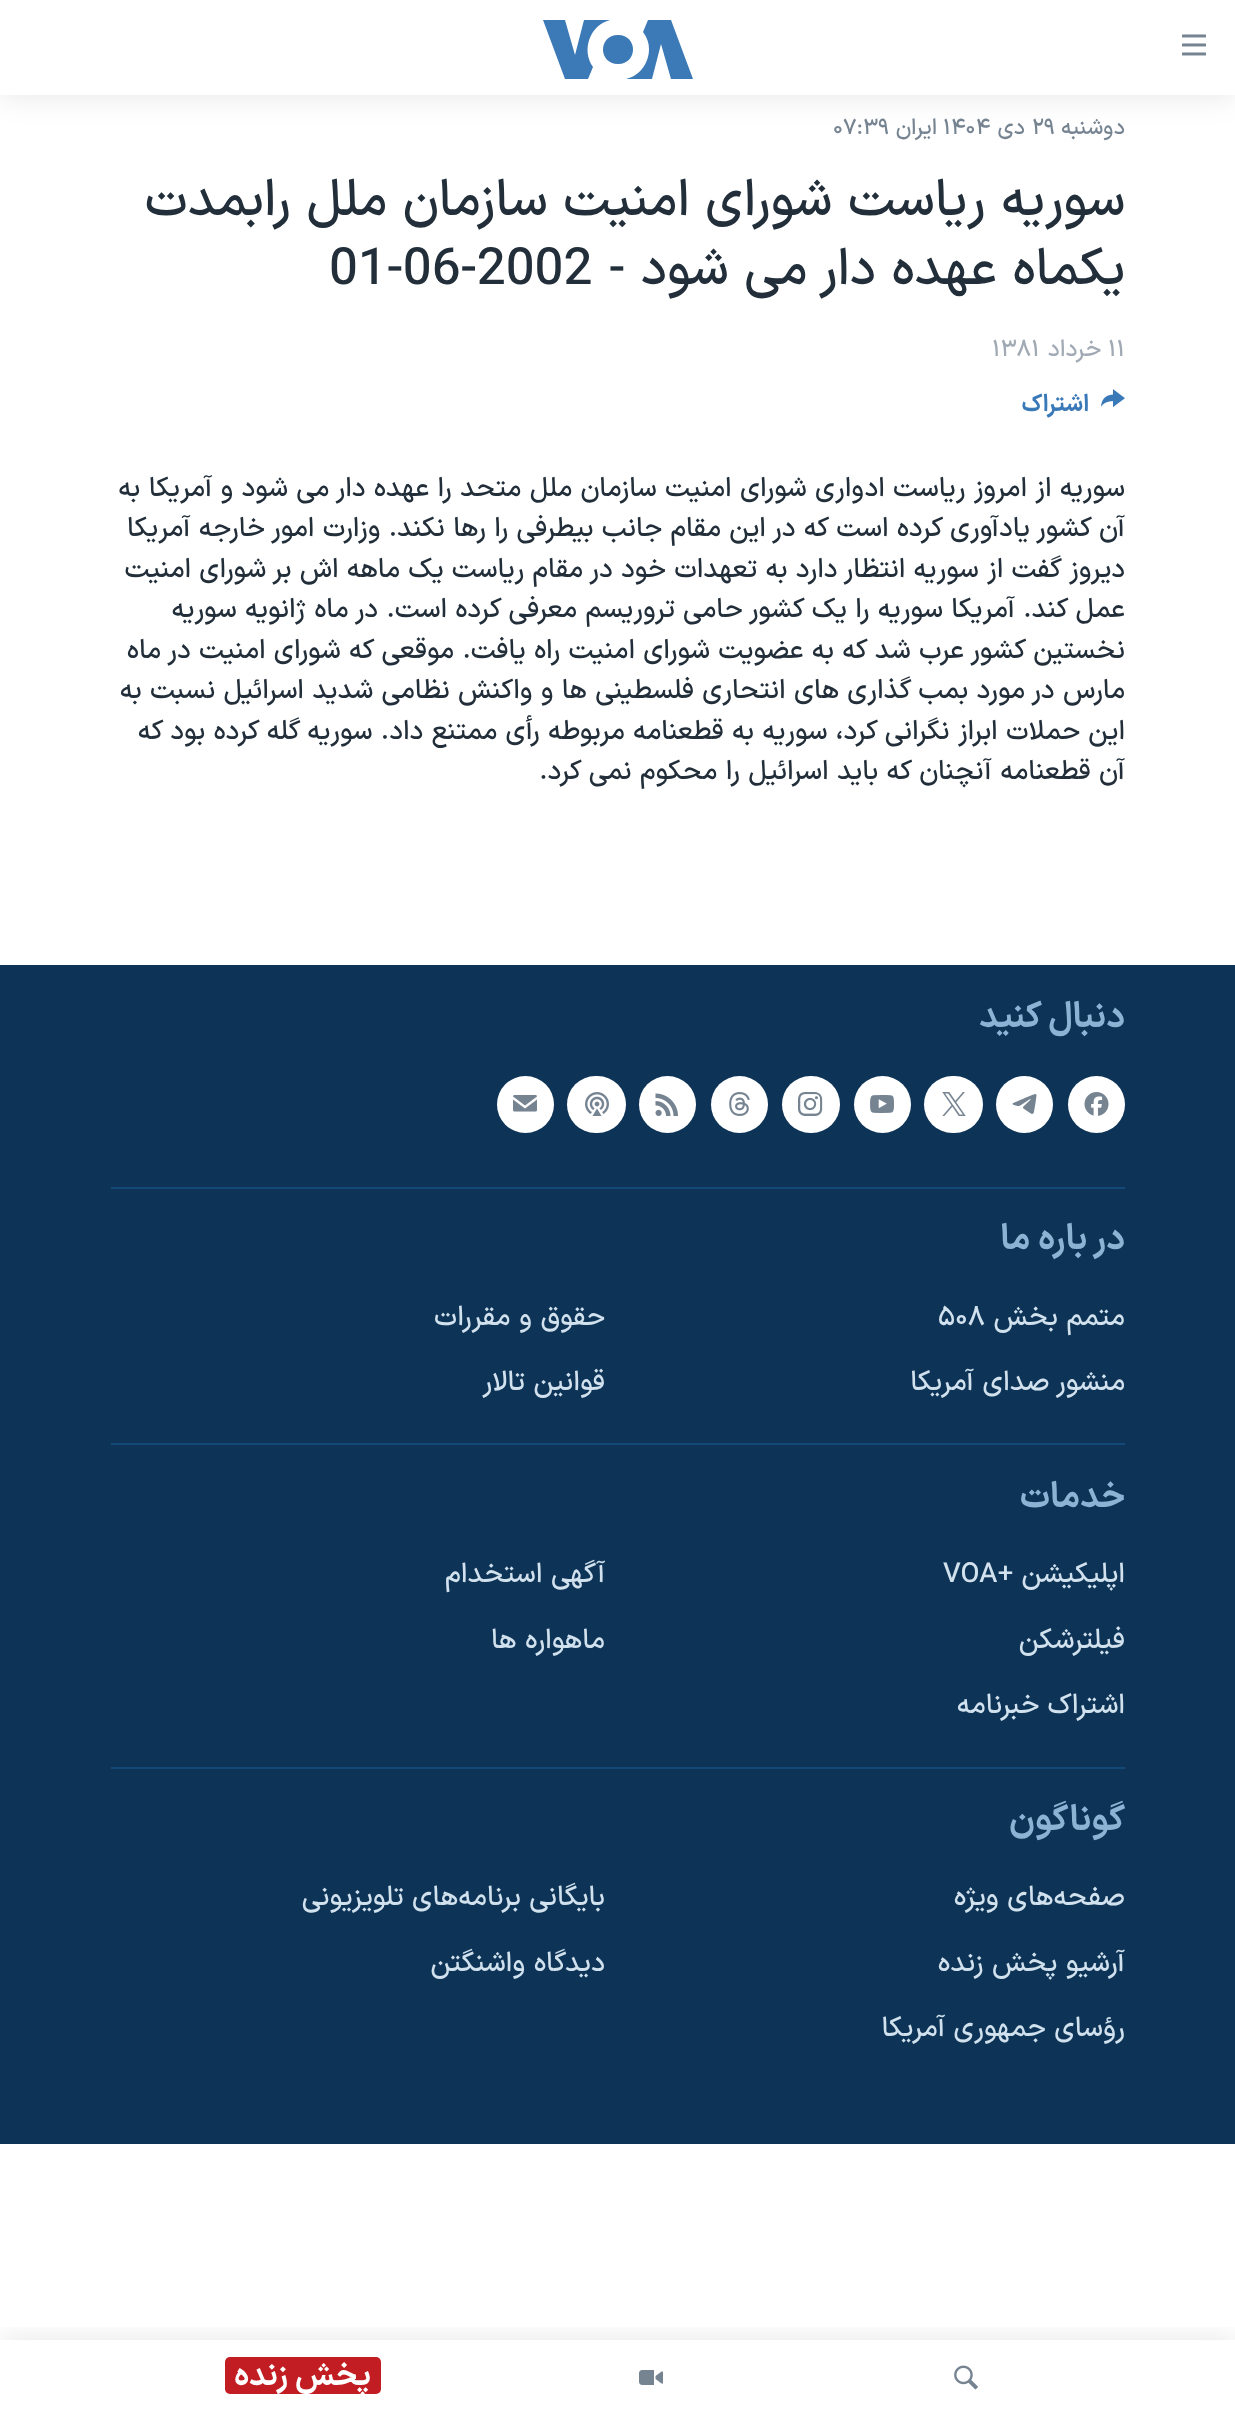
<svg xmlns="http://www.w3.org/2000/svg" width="1235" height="2414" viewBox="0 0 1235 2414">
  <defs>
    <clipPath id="clip1"><rect x="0" y="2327" width="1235" height="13"/></clipPath>
  </defs>
  <rect width="100%" height="100%" fill="rgb(255,255,255)"/>
  <text x="1125" y="134" font-family="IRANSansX" font-size="22" font-weight="500" direction="rtl" fill="rgb(118,132,146)">دوشنبه</text>
  <text x="1032" y="134" font-family="IRANSansX" font-size="22" font-weight="500" fill="rgb(118,132,146)">۲۹</text>
  <text x="1025" y="134" font-family="IRANSansX" font-size="22" font-weight="500" direction="rtl" fill="rgb(118,132,146)">دی</text>
  <text x="943" y="134" font-family="IRANSansX" font-size="22" font-weight="500" fill="rgb(118,132,146)">۱۴۰۴</text>
  <text x="937" y="134" font-family="IRANSansX" font-size="22" font-weight="500" direction="rtl" fill="rgb(118,132,146)">ایران</text>
  <text x="833" y="134" font-family="IRANSansX" font-size="22" font-weight="500" fill="rgb(118,132,146)">۰۷:۳۹</text>
  <g font-family="IRANSansX" font-size="51.25" font-weight="500" direction="rtl" fill="rgb(34,47,58)">
    <text>
      <tspan x="1125" y="215">سوريه رياست شورای امنيت سازمان ملل رابمدت</tspan>
      <tspan x="1125" y="284">يکماه عهده دار می شود -</tspan>
    </text>
  </g>
  <text x="329" y="284" font-family="IRANSansX" font-size="51.25" font-weight="500" fill="rgb(34,47,58)">01-06-2002</text>
  <text x="1108" y="356" font-family="IRANSansX" font-size="23.5" font-weight="500" fill="rgb(161,170,180)">۱۱</text>
  <text x="1101" y="356" font-family="IRANSansX" font-size="23.5" font-weight="500" direction="rtl" fill="rgb(161,170,180)">خرداد</text>
  <text x="992" y="356" font-family="IRANSansX" font-size="23.5" font-weight="500" fill="rgb(161,170,180)">۱۳۸۱</text>
  <image x="1101" y="389" width="24" height="18" href="pic1.png"/>
  <text x="1089" y="411" font-family="IRANSansX" font-size="23.5" font-weight="bold" direction="rtl" fill="rgb(58,121,183)">اشتراک</text>
  <g font-family="IRANSansX" font-size="27" font-weight="500" direction="rtl" fill="rgb(34,47,58)">
    <text>
      <tspan x="1125" y="496">سوريه از امروز رياست ادواری شورای امنيت سازمان ملل متحد را عهده دار می شود و آمريکا به</tspan>
      <tspan x="1125" y="536">آن کشور يادآوری کرده است که در اين مقام جانب بيطرفی را رها نکند. وزارت امور خارجه آمريکا</tspan>
      <tspan x="1125" y="577">ديروز گفت از سوريه انتظار دارد به تعهدات خود در مقام رياست يک ماهه اش بر شورای امنيت</tspan>
      <tspan x="1125" y="617">عمل کند. آمريکا سوريه را يک کشور حامی تروريسم معرفی کرده است. در ماه ژانويه سوريه</tspan>
      <tspan x="1125" y="658">نخستين کشور عرب شد که به عضويت شورای امنيت راه يافت. موقعی که شورای امنيت در ماه</tspan>
      <tspan x="1125" y="698">مارس در مورد بمب گذاری های انتحاری فلسطينی ها و واکنش نظامی شديد اسرائيل نسبت به</tspan>
      <tspan x="1125" y="739">اين حملات ابراز نگرانی کرد، سوريه به قطعنامه مربوطه رأی ممتنع داد. سوريه گله کرده بود که</tspan>
      <tspan x="1125" y="779">آن قطعنامه آنچنان که بايد اسرائيل را محکوم نمی کرد.</tspan>
    </text>
  </g>
  <rect x="0" y="965" width="1235" height="1179" fill="rgb(13,52,86)"/>
  <text x="1125" y="1027" font-family="IRANSansX" font-size="35.5" font-weight="bold" direction="rtl" fill="rgb(141,179,212)">دنبال کنید</text>
  <circle cx="1096.5" cy="1104.5" r="28.5" fill="rgb(255,255,255)"/>
  <image x="1084" y="1092" width="25" height="24" href="pic2.png"/>
  <circle cx="1024.5" cy="1104.5" r="28.5" fill="rgb(255,255,255)"/>
  <image x="1012" y="1094" width="25" height="20" href="pic3.png"/>
  <rect x="924" y="1076" width="59" height="57" rx="28.5" fill="rgb(255,255,255)"/>
  <image x="942" y="1092" width="24" height="24" href="pic4.png"/>
  <circle cx="882.5" cy="1104.5" r="28.5" fill="rgb(255,255,255)"/>
  <image x="870" y="1095" width="24" height="18" href="pic5.png"/>
  <rect x="782" y="1076" width="58" height="57" rx="28.5" fill="rgb(255,255,255)"/>
  <image x="798" y="1092" width="25" height="24" href="pic6.png"/>
  <circle cx="739.5" cy="1104.5" r="28.5" fill="rgb(255,255,255)"/>
  <image x="729" y="1092" width="21" height="24" href="pic7.png"/>
  <circle cx="667.5" cy="1104.5" r="28.5" fill="rgb(255,255,255)"/>
  <image x="655" y="1093" width="23" height="23" href="pic8.png"/>
  <rect x="567" y="1076" width="59" height="57" rx="28.5" fill="rgb(255,255,255)"/>
  <image x="585" y="1092" width="24" height="24" href="pic9.png"/>
  <circle cx="525.5" cy="1104.5" r="28.5" fill="rgb(255,255,255)"/>
  <image x="513" y="1095" width="24" height="17" href="pic10.png"/>
  <rect x="111" y="1187" width="1014" height="2" fill="rgb(19,73,118)"/>
  <text x="1125" y="1249" font-family="IRANSansX" font-size="35.5" font-weight="bold" direction="rtl" fill="rgb(141,179,212)">در باره ما</text>
  <text x="1125" y="1325" font-family="IRANSansX" font-size="27.6" font-weight="500" direction="rtl" fill="rgb(209,225,238)">متمم بخش</text>
  <text x="938" y="1325" font-family="IRANSansX" font-size="27.6" font-weight="500" fill="rgb(209,225,238)">۵۰۸</text>
  <g font-family="IRANSansX" font-size="27.6" font-weight="500" direction="rtl" fill="rgb(209,225,238)">
    <text x="605" y="1325">حقوق و مقررات</text>
    <text x="1125" y="1390">منشور صدای آمریکا</text>
    <text x="605" y="1390">قوانین تالار</text>
  </g>
  <rect x="111" y="1443" width="1014" height="2" fill="rgb(19,73,118)"/>
  <text x="1125" y="1507" font-family="IRANSansX" font-size="35.5" font-weight="bold" direction="rtl" fill="rgb(141,179,212)">خدمات</text>
  <text x="1125" y="1582" font-family="IRANSansX" font-size="27.6" font-weight="500" direction="rtl" fill="rgb(209,225,238)">اپلیکیشن +</text>
  <text x="943" y="1582" font-family="IRANSansX" font-size="27.6" font-weight="500" fill="rgb(209,225,238)">VOA</text>
  <g font-family="IRANSansX" font-size="27.6" font-weight="500" direction="rtl" fill="rgb(209,225,238)">
    <text x="605" y="1582">آگهی استخدام</text>
    <text x="1125" y="1648">فیلترشکن</text>
    <text x="605" y="1648">ماهواره ها</text>
    <text x="1125" y="1713">اشتراک خبرنامه</text>
  </g>
  <rect x="111" y="1767" width="1014" height="2" fill="rgb(19,73,118)"/>
  <text x="1125" y="1830" font-family="IRANSansX" font-size="35.5" font-weight="bold" direction="rtl" fill="rgb(141,179,212)">گوناگون</text>
  <g font-family="IRANSansX" font-size="27.6" font-weight="500" direction="rtl" fill="rgb(209,225,238)">
    <text x="1125" y="1905">صفحه‌های ویژه</text>
    <text x="605" y="1905">بایگانی برنامه‌های تلویزیونی</text>
    <text x="1125" y="1971">آرشیو پخش زنده</text>
    <text x="605" y="1971">دیدگاه‌ واشنگتن</text>
    <text x="1125" y="2036">رؤسای جمهوری آمریکا</text>
  </g>
  <rect x="0" y="0" width="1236" height="95" fill="rgba(0,0,0,0.1)" filter="blur(15px)"/>
  <rect x="0" y="0" width="1235" height="95" fill="rgb(255,255,255)"/>
  <image x="1182" y="34" width="24" height="22" href="pic11.png"/>
  <path d="M593 67L588 79H565L543 20H565L575 55L584 20H610C590 25 581 50 593 67ZM618 35C598 35 598 64 618 64C638 64 638 35 618 35ZM649 49C649 64 639 76 626 79H652L661 44L671 79H693L671 20H648L643 32C647 37 649 43 649 49Z" fill="rgb(59,121,183)"/>
  <g clip-path="url(#clip1)">
    <rect x="0" y="2340" width="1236" height="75" fill="rgba(0,0,0,0.1)" filter="blur(15px)"/>
  </g>
  <image x="954" y="2365" width="24" height="25" href="pic12.png"/>
  <image x="639" y="2370" width="24" height="15" href="pic13.png"/>
  <rect x="225" y="2357" width="156" height="37" rx="5" fill="rgb(193,29,34)"/>
  <text x="371" y="2385" font-family="IRANSansX" font-size="31.5" font-weight="bold" direction="rtl" fill="rgb(255,255,255)">پخش زنده</text>
</svg>
